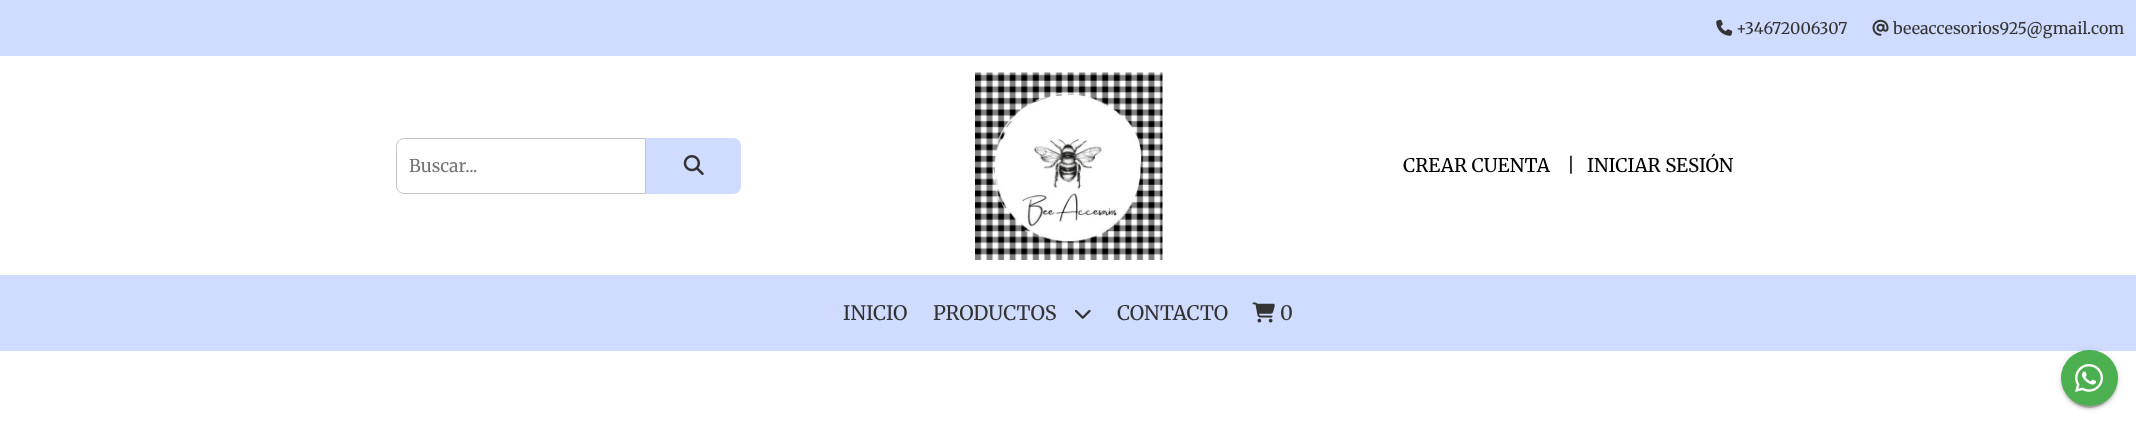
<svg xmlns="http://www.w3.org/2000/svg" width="2136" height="425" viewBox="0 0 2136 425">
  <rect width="100%" height="100%" fill="rgb(255,255,255)"/>
  <rect x="0" y="0" width="2136" height="56" fill="rgb(207,219,255)"/>
  <image x="1716" y="19" width="17" height="17" href="pic1.png"/>
  <text x="1736" y="34" font-family="Merriweather" font-size="16" fill="rgb(51,51,51)">+34672006307</text>
  <image x="1872" y="19" width="17" height="17" href="pic2.png"/>
  <text x="1893" y="34" font-family="Merriweather" font-size="16" fill="rgb(51,51,51)">beeaccesorios925@gmail.com</text>
  <path d="M404 138.5H645.5V193.5H404C400 193.5 396.5 190 396.5 186V146C396.5 142 400 138.5 404 138.5Z" fill="none" stroke="rgb(196,196,196)"/>
  <text x="409" y="172" font-family="Merriweather" font-size="17.5" fill="rgb(117,117,117)">Buscar...</text>
  <path d="M646 138H733C737.5 138 741 141.5 741 146V186C741 190.5 737.5 194 733 194H646Z" fill="rgb(207,219,255)"/>
  <image x="683" y="155" width="21" height="20" href="pic3.png"/>
  <image x="975" y="72" width="188" height="188" href="pic4.png"/>
  <g font-family="Merriweather" font-size="18.75" fill="rgb(0,0,0)">
    <text x="1403" y="172">CREAR CUENTA</text>
    <text x="1567" y="172">|</text>
    <text x="1587" y="172">INICIAR SESIÓN</text>
  </g>
  <rect x="0" y="275" width="2136" height="76" fill="rgb(207,219,255)"/>
  <g font-family="Merriweather" font-size="20" fill="rgb(51,51,51)">
    <text x="843" y="320">INICIO</text>
    <text x="933" y="320">PRODUCTOS</text>
  </g>
  <image x="1074" y="309" width="17" height="10" href="pic5.png"/>
  <text x="1117" y="320" font-family="Merriweather" font-size="20" fill="rgb(51,51,51)">CONTACTO</text>
  <image x="1252" y="302" width="23" height="21" href="pic6.png"/>
  <text x="1280" y="320" font-family="Merriweather" font-size="20" fill="rgb(51,51,51)">0</text>
  <rect x="2064" y="356" width="51" height="52" rx="25.5" fill="rgba(0,0,0,0.2)" filter="blur(0.5px)"/>
  <rect x="2061" y="351" width="57" height="57" rx="28.5" fill="rgba(0,0,0,0.12)" filter="blur(3px)"/>
  <rect x="2061" y="353" width="57" height="56" rx="28" fill="rgba(0,0,0,0.14)" filter="blur(1px)"/>
  <rect x="2061" y="350" width="57" height="56" rx="28" fill="rgb(76,175,80)"/>
  <image x="2075" y="364" width="28" height="28" href="pic7.png"/>
</svg>
